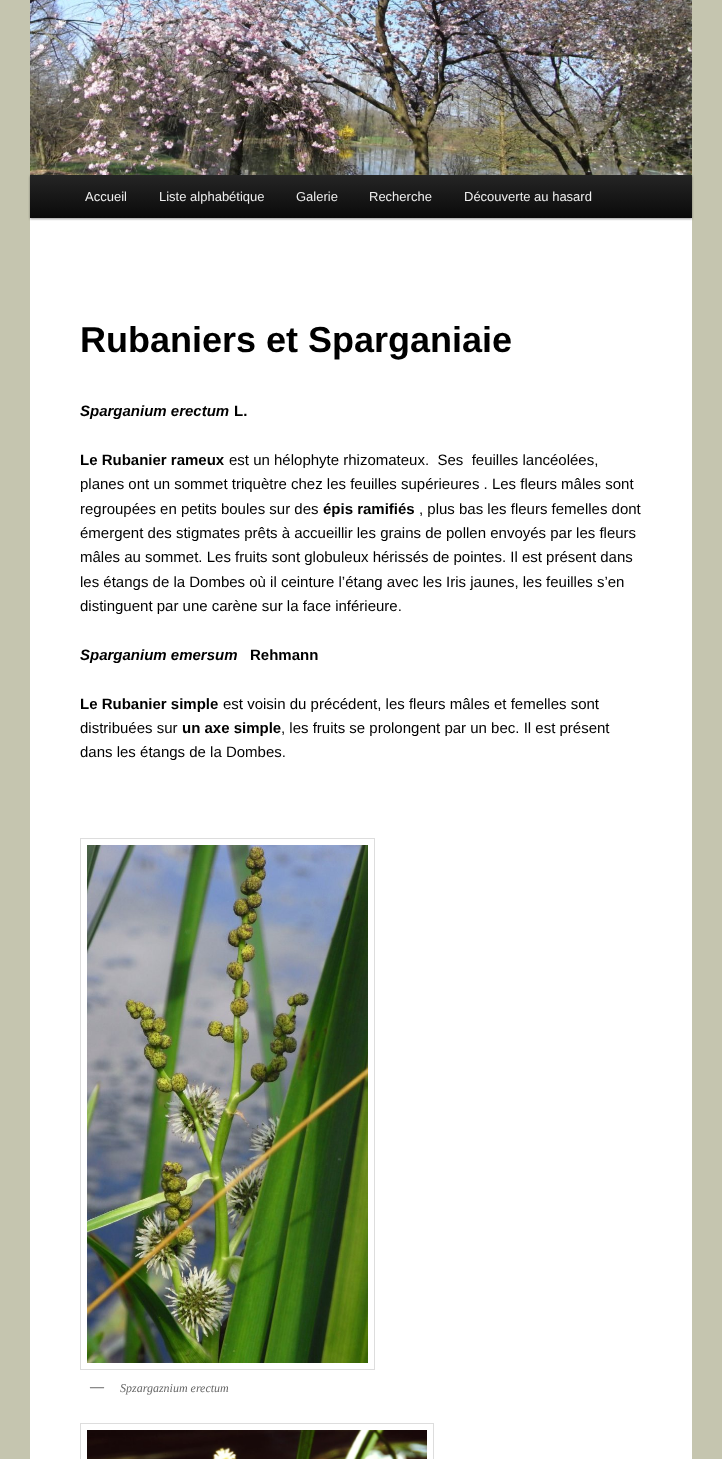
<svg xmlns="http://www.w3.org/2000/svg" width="722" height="1459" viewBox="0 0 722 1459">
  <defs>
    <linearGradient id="g1" gradientUnits="userSpaceOnUse" x1="361" y1="175" x2="361" y2="218"><stop offset="0" stop-color="rgb(37,37,37)"/><stop offset="1" stop-color="rgb(10,10,10)"/></linearGradient>
  </defs>
  <rect width="100%" height="100%" fill="rgb(197,197,175)"/>
  <rect x="30" y="218" width="662" height="1241" fill="rgb(255,255,255)"/>
  <rect x="30" y="176" width="662" height="43" fill="rgba(0,0,0,0.4)" filter="blur(1px)"/>
  <image x="30" y="0" width="662" height="175" href="pic1.png"/>
  <rect x="30" y="175" width="662" height="43" fill="url(#g1)"/>
  <g font-family="Liberation Sans" font-size="13" fill="rgb(238,238,238)">
    <text x="85" y="201">Accueil</text>
    <text x="159" y="201">Liste alphabétique</text>
    <text x="296" y="201">Galerie</text>
    <text x="369" y="201">Recherche</text>
    <text x="464" y="201">Découverte au hasard</text>
  </g>
  <text x="80" y="352" font-family="Liberation Sans" font-size="36" font-weight="bold" fill="rgb(0,0,0)">Rubaniers et Sparganiaie</text>
  <text x="80" y="416" font-family="Liberation Sans" font-size="15" font-weight="bold" font-style="italic" fill="rgb(0,0,0)">Sparganium erectum</text>
  <g font-family="Liberation Sans" font-size="15" font-weight="bold" fill="rgb(0,0,0)">
    <text x="234" y="416">L.</text>
    <text x="80" y="465">Le Rubanier rameux</text>
  </g>
  <g font-family="Liberation Sans" font-size="15" fill="rgb(0,0,0)">
    <text x="229" y="465" xml:space="preserve">est un hélophyte rhizomateux.  Ses  feuilles lancéolées,</text>
    <text>
      <tspan x="80" y="489">planes ont un sommet triquètre chez les feuilles supérieures . Les fleurs mâles sont</tspan>
      <tspan x="80" y="514">regroupées en petits boules sur des</tspan>
    </text>
  </g>
  <text x="323" y="514" font-family="Liberation Sans" font-size="15" font-weight="bold" fill="rgb(0,0,0)">épis ramifiés</text>
  <g font-family="Liberation Sans" font-size="15" fill="rgb(0,0,0)">
    <text x="419" y="514">, plus bas les fleurs femelles dont</text>
    <text>
      <tspan x="80" y="538">émergent des stigmates prêts à accueillir les grains de pollen envoyés par les fleurs</tspan>
      <tspan x="80" y="562">mâles au sommet. Les fruits sont globuleux hérissés de pointes. Il est présent dans</tspan>
      <tspan x="80" y="587">les étangs de la Dombes où il ceinture l’étang avec les Iris jaunes, les feuilles s’en</tspan>
      <tspan x="80" y="611">distinguent par une carène sur la face inférieure.</tspan>
    </text>
  </g>
  <text x="80" y="660" font-family="Liberation Sans" font-size="15" font-weight="bold" font-style="italic" fill="rgb(0,0,0)">Sparganium emersum</text>
  <g font-family="Liberation Sans" font-size="15" font-weight="bold" fill="rgb(0,0,0)">
    <text x="250" y="660">Rehmann</text>
    <text x="80" y="709">Le Rubanier simple</text>
  </g>
  <g font-family="Liberation Sans" font-size="15" fill="rgb(0,0,0)">
    <text x="223" y="709">est voisin du précédent, les fleurs mâles et femelles sont</text>
    <text x="80" y="733">distribuées sur</text>
  </g>
  <text x="182" y="733" font-family="Liberation Sans" font-size="15" font-weight="bold" fill="rgb(0,0,0)">un axe simple</text>
  <g font-family="Liberation Sans" font-size="15" fill="rgb(0,0,0)">
    <text x="281" y="733">, les fruits se prolongent par un bec. Il est présent</text>
    <text x="80" y="757">dans les étangs de la Dombes.</text>
  </g>
  <rect x="80.5" y="838.5" width="294" height="531" fill="none" stroke="rgb(221,221,221)"/>
  <image x="87" y="845" width="281" height="518" href="pic2.png"/>
  <text x="90" y="1391" font-family="Liberation Serif" font-size="14" font-weight="bold" fill="rgb(102,102,102)">—</text>
  <text x="120" y="1392" font-family="Liberation Serif" font-size="12" font-style="italic" fill="rgb(102,102,102)">Spzargaznium erectum</text>
  <rect x="80.5" y="1423.5" width="353" height="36" fill="none" stroke="rgb(221,221,221)"/>
  <image x="87" y="1430" width="340" height="29" href="pic3.png"/>
</svg>
